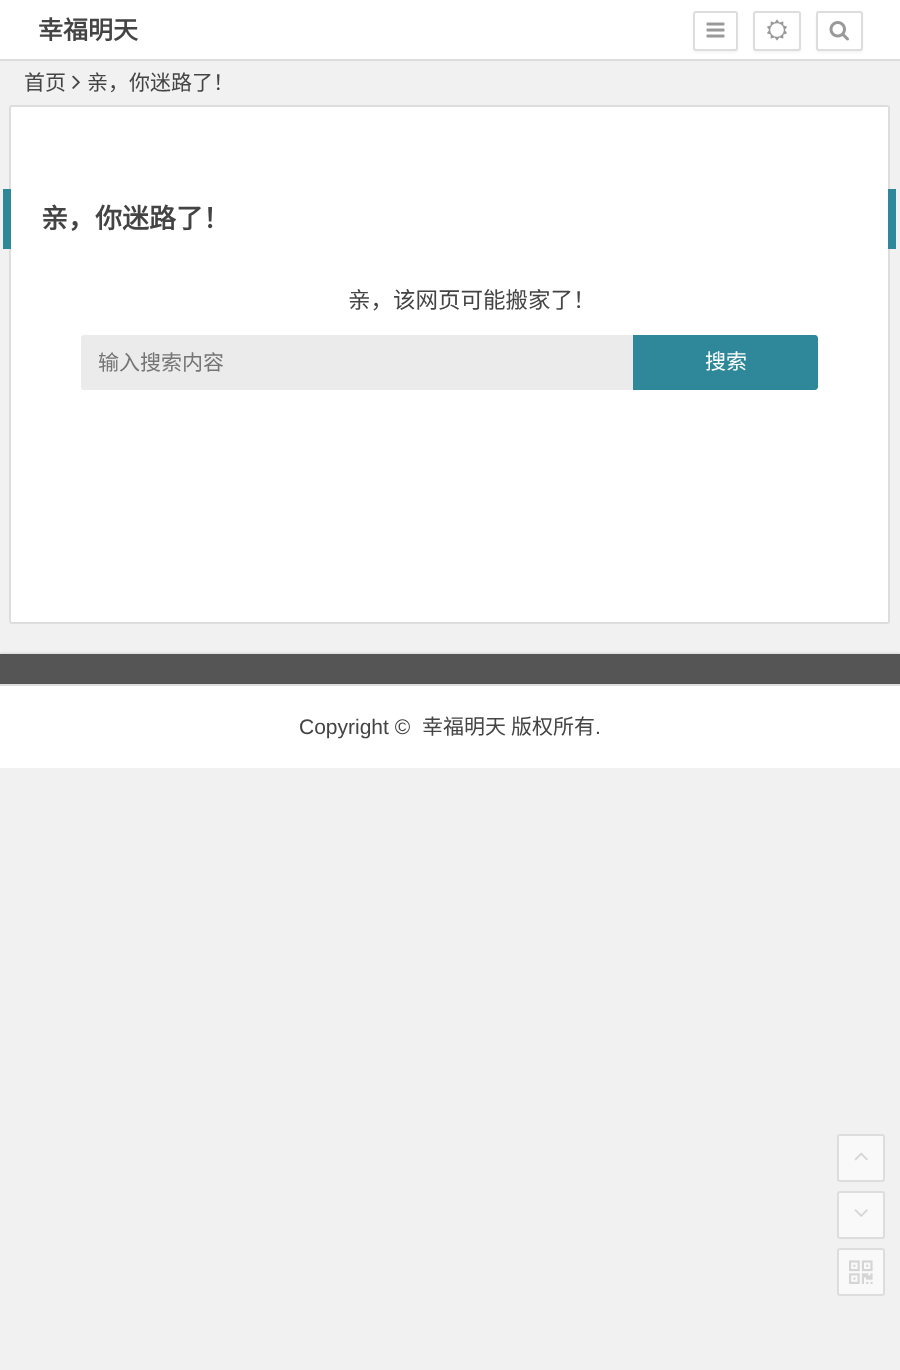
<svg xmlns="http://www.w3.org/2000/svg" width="900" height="1370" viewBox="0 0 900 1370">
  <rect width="100%" height="100%" fill="rgb(241,241,241)"/>
  <rect x="0" y="0" width="900" height="59" fill="rgb(255,255,255)"/>
  <rect x="0" y="59" width="900" height="2" fill="rgb(221,221,221)"/>
  <text x="38" y="39" font-family="Noto Sans CJK SC" font-size="25" font-weight="bold" fill="rgb(68,68,68)">幸福明天</text>
  <rect x="693" y="12" width="45" height="41" rx="3" fill="rgba(0,0,0,0.04)" filter="blur(1px)"/>
  <rect x="694" y="12" width="43" height="38" rx="2" fill="rgb(255,255,255)" stroke="rgb(221,221,221)" stroke-width="2"/>
  <image x="706" y="22" width="19" height="16" href="pic1.png"/>
  <rect x="753" y="12" width="48" height="41" rx="3" fill="rgba(0,0,0,0.04)" filter="blur(1px)"/>
  <rect x="754" y="12" width="46" height="38" rx="2" fill="rgb(255,255,255)" stroke="rgb(221,221,221)" stroke-width="2"/>
  <image x="767" y="19" width="20" height="22" href="pic2.png"/>
  <rect x="816" y="12" width="47" height="41" rx="3" fill="rgba(0,0,0,0.04)" filter="blur(1px)"/>
  <rect x="817" y="12" width="45" height="38" rx="2" fill="rgb(255,255,255)" stroke="rgb(221,221,221)" stroke-width="2"/>
  <image x="829" y="21" width="20" height="20" href="pic3.png"/>
  <text x="24" y="90" font-family="Noto Sans CJK SC" font-size="21" fill="rgb(68,68,68)">首页</text>
  <image x="72" y="75" width="8" height="14" href="pic4.png"/>
  <text x="87" y="90" font-family="Noto Sans CJK SC" font-size="21" fill="rgb(68,68,68)">亲，你迷路了！</text>
  <rect x="10" y="106" width="879" height="517" rx="2" fill="rgb(255,255,255)" stroke="rgb(221,221,221)" stroke-width="2"/>
  <rect x="888" y="189" width="8" height="60" fill="rgb(47,136,154)"/>
  <rect x="3" y="189" width="8" height="60" fill="rgb(47,136,154)"/>
  <text x="41" y="228" font-family="Noto Sans CJK SC" font-size="27" font-weight="bold" fill="rgb(68,68,68)">亲，你迷路了！</text>
  <text x="348" y="308" font-family="Noto Sans CJK SC" font-size="22.5" fill="rgb(68,68,68)">亲，该网页可能搬家了！</text>
  <path d="M84 336H632V389H84C83 389 82 388 82 387V338C82 337 83 336 84 336Z" fill="rgb(235,235,235)" stroke="rgb(235,235,235)" stroke-width="2"/>
  <text x="98" y="370" font-family="Noto Sans CJK SC" font-size="21" fill="rgb(117,117,117)">输入搜索内容</text>
  <path d="M633 335H815C816.5 335 818 336.5 818 338V387C818 388.5 816.5 390 815 390H633Z" fill="rgb(47,136,154)"/>
  <text x="705" y="369" font-family="Noto Sans CJK SC" font-size="21" fill="rgb(255,255,255)">搜索</text>
  <rect x="0" y="653" width="900" height="30" fill="rgba(0,0,0,0.1)" filter="blur(1px)"/>
  <rect x="0" y="654" width="900" height="30" fill="rgb(85,85,85)"/>
  <rect x="0" y="686" width="900" height="82" fill="rgb(255,255,255)"/>
  <rect x="0" y="684" width="900" height="2" fill="rgb(221,221,221)"/>
  <text x="299" y="734" font-family="Liberation Sans" font-size="21" fill="rgb(68,68,68)">Copyright ©</text>
  <g font-family="Noto Sans CJK SC" font-size="21" fill="rgb(68,68,68)">
    <text x="422" y="734">幸福明天</text>
    <text x="511" y="734">版权所有</text>
  </g>
  <text x="595" y="734" font-family="Liberation Sans" font-size="21" fill="rgb(68,68,68)">.</text>
  <rect x="838" y="1135" width="46" height="46" rx="2" fill="rgba(255,255,255,0.6)" stroke="rgb(221,221,221)" stroke-width="2"/>
  <image x="854" y="1152" width="14" height="9" href="pic5.png"/>
  <rect x="838" y="1192" width="46" height="46" rx="2" fill="rgba(255,255,255,0.6)" stroke="rgb(221,221,221)" stroke-width="2"/>
  <image x="854" y="1209" width="14" height="8" href="pic6.png"/>
  <rect x="838" y="1249" width="46" height="46" rx="2" fill="rgba(255,255,255,0.6)" stroke="rgb(221,221,221)" stroke-width="2"/>
  <image x="849" y="1260" width="24" height="24" href="pic7.png"/>
</svg>
